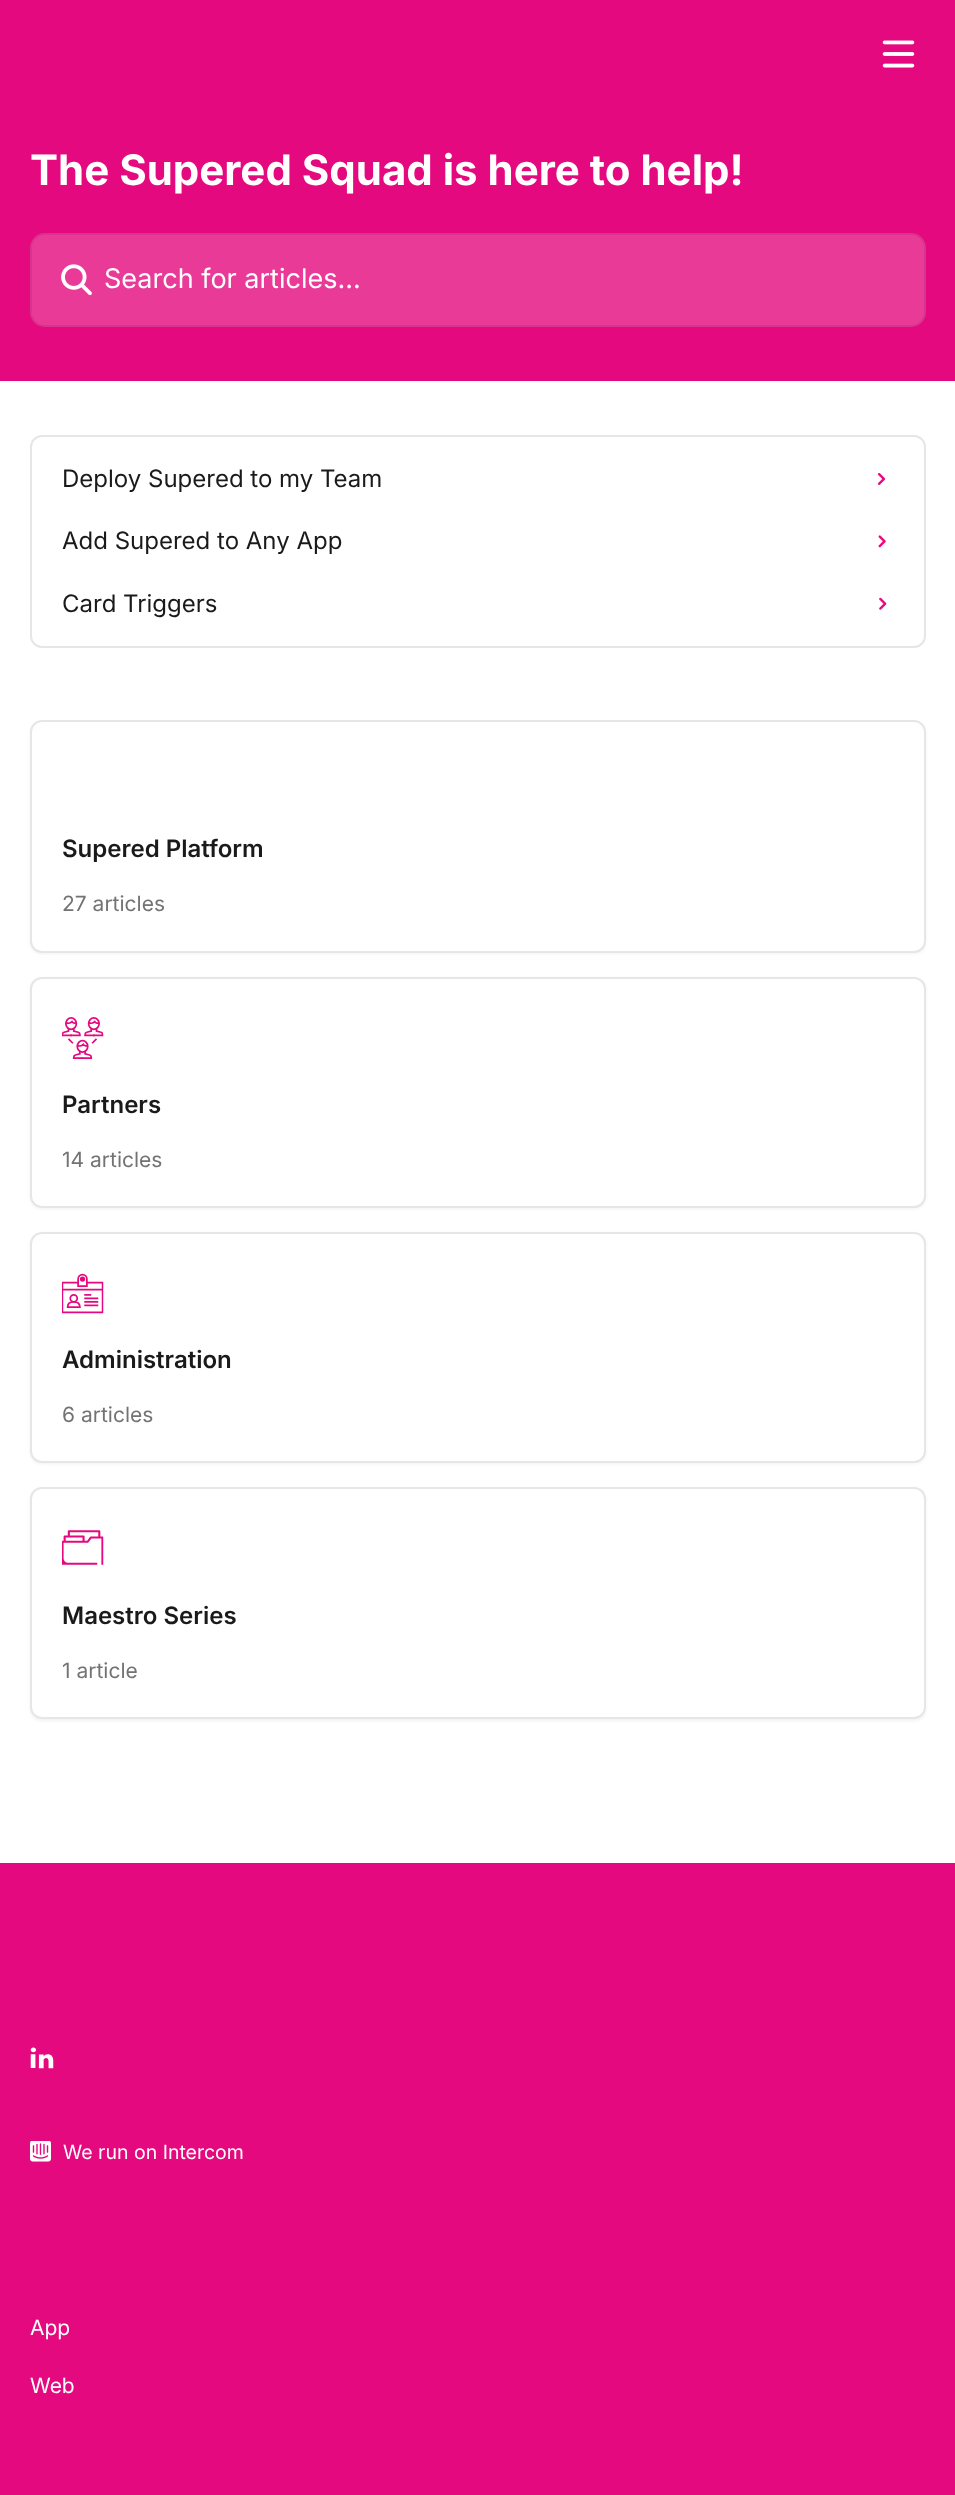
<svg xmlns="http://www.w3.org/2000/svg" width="955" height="2495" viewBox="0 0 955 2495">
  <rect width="100%" height="100%" fill="rgb(255,255,255)"/>
  <rect x="0" y="0" width="955" height="381" fill="rgb(229,9,127)"/>
  <image x="882" y="40" width="33" height="28" href="pic1.png"/>
  <text x="30" y="185" font-family="Inter" font-size="42" font-weight="bold" fill="rgb(255,255,255)">The Supered Squad is here to help!</text>
  <rect x="30" y="233" width="896" height="94" rx="15" fill="rgba(255,255,255,0.2)"/>
  <rect x="31" y="234" width="894" height="92" rx="14" fill="none" stroke="rgba(0,0,0,0.08)" stroke-width="2"/>
  <image x="61" y="264" width="31" height="32" href="pic2.png"/>
  <text x="104" y="288" font-family="Inter" font-size="27" fill="rgb(255,255,255)">Search for articles...</text>
  <rect x="31" y="436" width="894" height="211" rx="11" fill="none" stroke="rgb(230,230,230)" stroke-width="2"/>
  <text x="62" y="487" font-family="Inter" font-size="24" fill="rgb(26,26,26)">Deploy Supered to my Team</text>
  <image x="877" y="473" width="9" height="12" href="pic3.png"/>
  <text x="62" y="549" font-family="Inter" font-size="24" fill="rgb(26,26,26)">Add Supered to Any App</text>
  <image x="878" y="535" width="8" height="13" href="pic4.png"/>
  <text x="62" y="612" font-family="Inter" font-size="24" fill="rgb(26,26,26)">Card Triggers</text>
  <image x="879" y="597" width="8" height="13" href="pic5.png"/>
  <rect x="30" y="722" width="896" height="232" rx="12" fill="rgba(0,0,0,0.05)" filter="blur(1.5px)"/>
  <rect x="31" y="721" width="894" height="231" rx="11" fill="rgb(255,255,255)" stroke="rgb(230,230,230)" stroke-width="2"/>
  <text x="62" y="857" font-family="Inter" font-size="24" font-weight="600" fill="rgb(26,26,26)">Supered Platform</text>
  <text x="62" y="911" font-family="Inter" font-size="21" fill="rgb(115,115,115)">27 articles</text>
  <rect x="30" y="978" width="896" height="231" rx="12" fill="rgba(0,0,0,0.05)" filter="blur(1.5px)"/>
  <rect x="31" y="978" width="894" height="229" rx="11" fill="rgb(255,255,255)" stroke="rgb(230,230,230)" stroke-width="2"/>
  <image x="62" y="1017" width="42" height="42" href="pic6.png"/>
  <text x="62" y="1113" font-family="Inter" font-size="24" font-weight="600" fill="rgb(26,26,26)">Partners</text>
  <text x="62" y="1167" font-family="Inter" font-size="21" fill="rgb(115,115,115)">14 articles</text>
  <rect x="30" y="1233" width="896" height="231" rx="12" fill="rgba(0,0,0,0.05)" filter="blur(1.5px)"/>
  <rect x="31" y="1233" width="894" height="229" rx="11" fill="rgb(255,255,255)" stroke="rgb(230,230,230)" stroke-width="2"/>
  <image x="62" y="1273" width="42" height="41" href="pic7.png"/>
  <text x="62" y="1368" font-family="Inter" font-size="24" font-weight="600" fill="rgb(26,26,26)">Administration</text>
  <text x="62" y="1422" font-family="Inter" font-size="21" fill="rgb(115,115,115)">6 articles</text>
  <rect x="30" y="1488" width="896" height="233" rx="12" fill="rgba(0,0,0,0.05)" filter="blur(1.5px)"/>
  <rect x="31" y="1488" width="894" height="230" rx="11" fill="rgb(255,255,255)" stroke="rgb(230,230,230)" stroke-width="2"/>
  <image x="62" y="1530" width="42" height="35" href="pic8.png"/>
  <text x="62" y="1624" font-family="Inter" font-size="24" font-weight="600" fill="rgb(26,26,26)">Maestro Series</text>
  <text x="62" y="1678" font-family="Inter" font-size="21" fill="rgb(115,115,115)">1 article</text>
  <rect x="0" y="1863" width="955" height="632" fill="rgb(229,9,127)"/>
  <image x="30" y="2047" width="24" height="22" href="pic9.png"/>
  <image x="30" y="2141" width="21" height="21" href="pic10.png"/>
  <text x="63" y="2159" font-family="Inter" font-size="19.5" fill="rgb(255,255,255)">We run on Intercom</text>
  <g font-family="Inter" font-size="21" fill="rgb(255,255,255)">
    <text x="30" y="2335">App</text>
    <text x="30" y="2393">Web</text>
  </g>
</svg>
